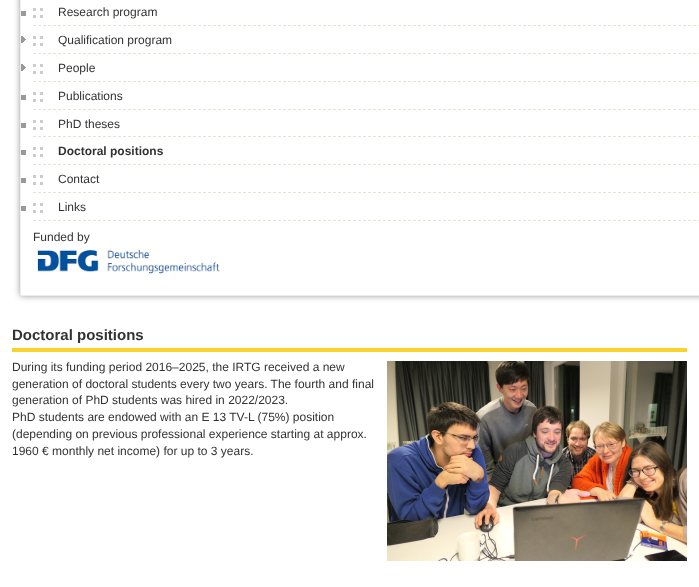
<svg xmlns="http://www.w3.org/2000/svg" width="699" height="587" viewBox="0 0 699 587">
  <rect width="100%" height="100%" fill="rgb(255,255,255)"/>
  <rect x="20" y="-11" width="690" height="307" rx="2" fill="rgb(153,153,153)" filter="blur(3px)"/>
  <rect x="20.5" y="-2.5" width="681" height="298" rx="1.5" fill="rgb(255,255,255)" stroke="rgb(238,238,238)"/>
  <rect x="21" y="11" width="5" height="5" fill="rgb(153,153,153)"/>
  <image x="33" y="8" width="10" height="10" href="pic1.png"/>
  <path d="M33 25.5H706" fill="none" stroke="rgb(233,225,210)" stroke-dasharray="3 2"/>
  <text x="58" y="16" font-family="Liberation Sans" font-size="12" fill="rgb(51,51,51)">Research program</text>
  <image x="21" y="36" width="5" height="7" href="pic2.png"/>
  <image x="33" y="36" width="10" height="10" href="pic1.png"/>
  <path d="M33 53.5H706" fill="none" stroke="rgb(233,225,210)" stroke-dasharray="3 2"/>
  <text x="58" y="44" font-family="Liberation Sans" font-size="12" fill="rgb(51,51,51)">Qualification program</text>
  <image x="21" y="64" width="5" height="7" href="pic2.png"/>
  <image x="33" y="64" width="10" height="10" href="pic1.png"/>
  <path d="M33 81.5H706" fill="none" stroke="rgb(233,225,210)" stroke-dasharray="3 2"/>
  <text x="58" y="72" font-family="Liberation Sans" font-size="12" fill="rgb(51,51,51)">People</text>
  <rect x="21" y="95" width="5" height="5" fill="rgb(153,153,153)"/>
  <image x="33" y="92" width="10" height="10" href="pic1.png"/>
  <path d="M33 109.5H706" fill="none" stroke="rgb(233,225,210)" stroke-dasharray="3 2"/>
  <text x="58" y="100" font-family="Liberation Sans" font-size="12" fill="rgb(51,51,51)">Publications</text>
  <rect x="21" y="123" width="5" height="5" fill="rgb(153,153,153)"/>
  <image x="33" y="120" width="10" height="10" href="pic1.png"/>
  <path d="M33 136.5H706" fill="none" stroke="rgb(233,225,210)" stroke-dasharray="3 2"/>
  <text x="58" y="128" font-family="Liberation Sans" font-size="12" fill="rgb(51,51,51)">PhD theses</text>
  <rect x="21" y="150" width="5" height="5" fill="rgb(153,153,153)"/>
  <image x="33" y="147" width="10" height="10" href="pic1.png"/>
  <path d="M33 164.5H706" fill="none" stroke="rgb(233,225,210)" stroke-dasharray="3 2"/>
  <text x="58" y="155" font-family="Liberation Sans" font-size="12" font-weight="bold" fill="rgb(51,51,51)">Doctoral positions</text>
  <rect x="21" y="178" width="5" height="5" fill="rgb(153,153,153)"/>
  <image x="33" y="175" width="10" height="10" href="pic1.png"/>
  <path d="M33 192.5H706" fill="none" stroke="rgb(233,225,210)" stroke-dasharray="3 2"/>
  <text x="58" y="183" font-family="Liberation Sans" font-size="12" fill="rgb(51,51,51)">Contact</text>
  <rect x="21" y="206" width="5" height="5" fill="rgb(153,153,153)"/>
  <image x="33" y="203" width="10" height="10" href="pic1.png"/>
  <path d="M33 220.5H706" fill="none" stroke="rgb(233,225,210)" stroke-dasharray="3 2"/>
  <g font-family="Liberation Sans" font-size="12" fill="rgb(51,51,51)">
    <text x="58" y="211">Links</text>
    <text x="33" y="241">Funded by</text>
  </g>
  <image x="37" y="249" width="183" height="25" href="pic3.png"/>
  <rect x="12" y="348" width="675" height="4" fill="rgb(248,212,42)"/>
  <text x="12" y="340" font-family="Liberation Sans" font-size="15" font-weight="bold" fill="rgb(51,51,51)">Doctoral positions</text>
  <text x="12" y="371" font-family="Liberation Sans" font-size="12" fill="rgb(51,51,51)">During its funding period 2016–2025, the IRTG received a new</text>
  <image x="387" y="361" width="300" height="200" href="pic4.png"/>
  <g font-family="Liberation Sans" font-size="12" fill="rgb(51,51,51)">
    <text>
      <tspan x="12" y="388">generation of doctoral students every two years. The fourth and final</tspan>
      <tspan x="12" y="404">generation of PhD students was hired in 2022/2023.</tspan>
      <tspan x="12" y="421">PhD students are endowed with an E 13 TV-L (75%) position</tspan>
      <tspan x="12" y="438">(depending on previous professional experience starting at approx.</tspan>
      <tspan x="12" y="455">1960 € monthly net income) for up to 3 years.</tspan>
    </text>
  </g>
</svg>
